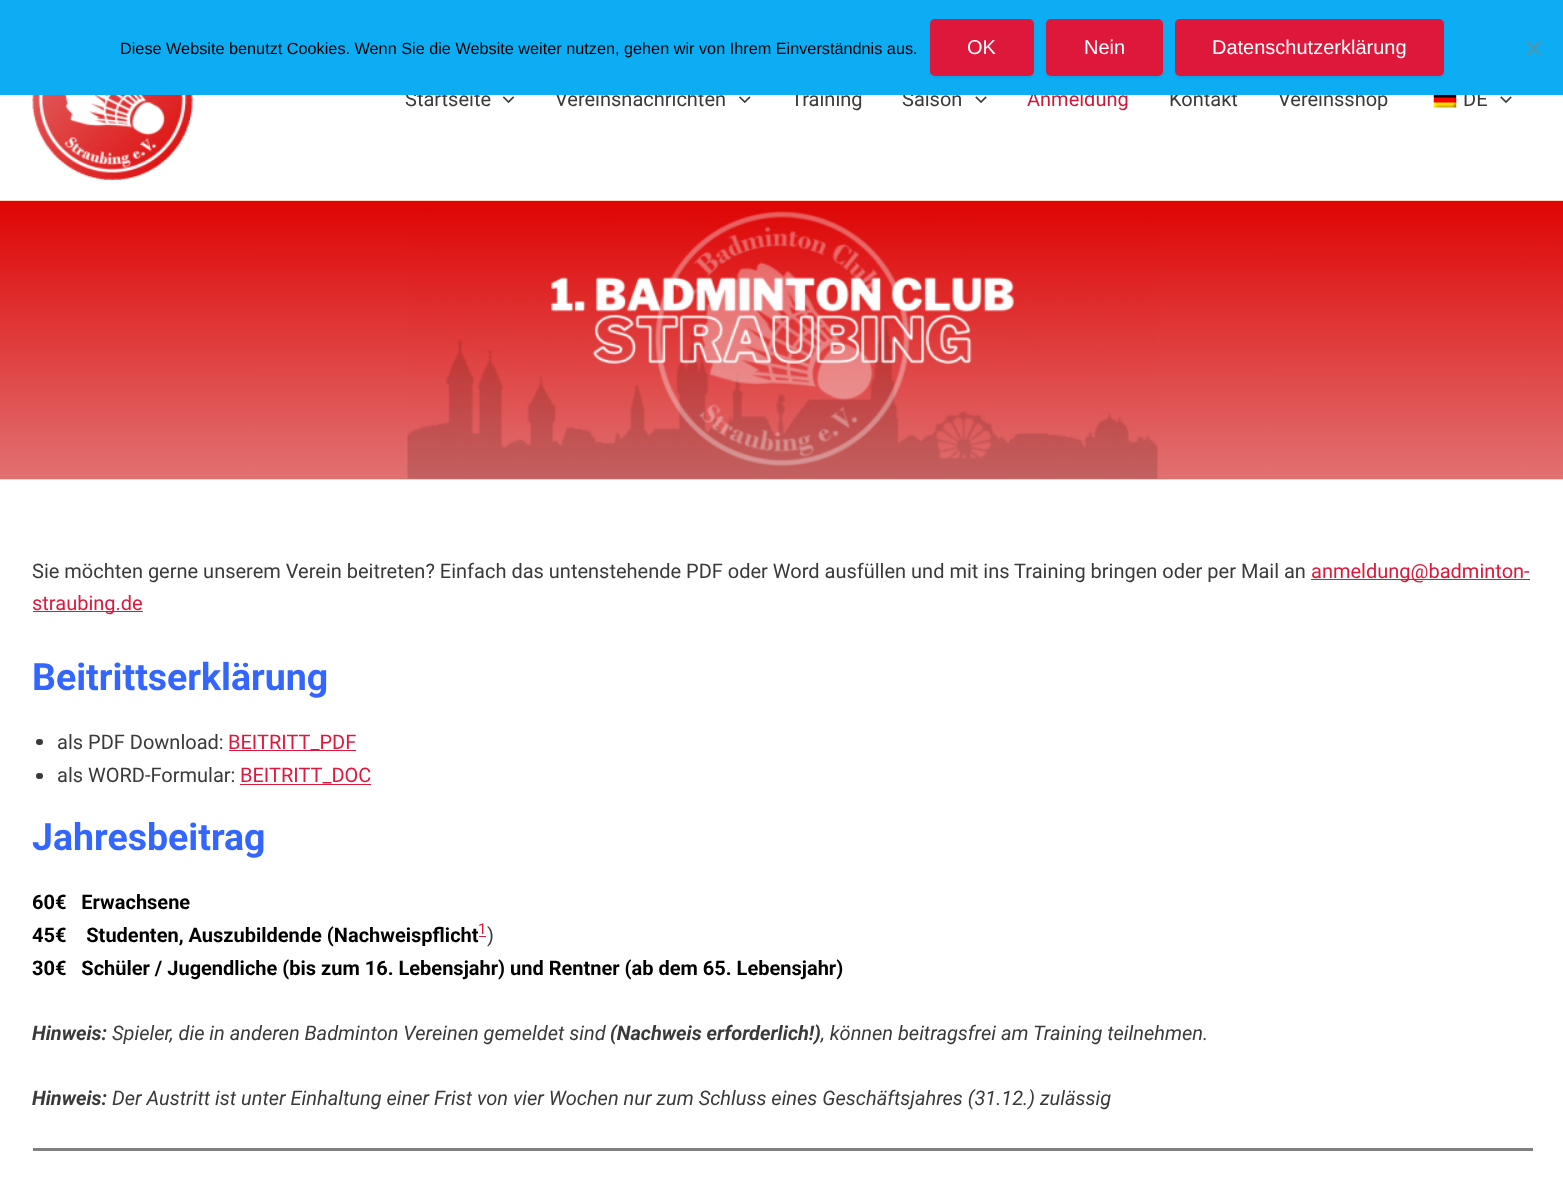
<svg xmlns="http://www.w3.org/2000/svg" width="1563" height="1187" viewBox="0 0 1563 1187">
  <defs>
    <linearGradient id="g1" gradientUnits="userSpaceOnUse" x1="782" y1="201" x2="782" y2="479"><stop offset="0" stop-color="rgb(223,5,5)"/><stop offset="1" stop-color="rgb(225,113,113)"/></linearGradient>
  </defs>
  <rect width="100%" height="100%" fill="rgb(255,255,255)"/>
  <g font-family="Roboto" font-size="20" fill="rgb(58,58,58)">
    <text x="405" y="106">Startseite</text>
    <text x="555" y="106">Vereinsnachrichten</text>
    <text x="791" y="106">Training</text>
    <text x="902" y="106">Saison</text>
  </g>
  <text x="1027" y="106" font-family="Roboto" font-size="20" fill="rgb(204,25,57)">Anmeldung</text>
  <g font-family="Roboto" font-size="20" fill="rgb(58,58,58)">
    <text x="1169" y="106">Kontakt</text>
    <text x="1278" y="106">Vereinsshop</text>
    <text x="1463" y="106">DE</text>
  </g>
  <rect x="0" y="0" width="1563" height="95" fill="rgb(12,173,242)"/>
  <text x="120" y="54" font-family="Liberation Sans" font-size="16.25" fill="rgb(0,0,0)">Diese Website benutzt Cookies. Wenn Sie die Website weiter nutzen, gehen wir von Ihrem Einverständnis aus.</text>
  <rect x="930" y="20" width="104" height="58" rx="5" fill="rgba(0,0,0,0.05)" filter="blur(1px)"/>
  <rect x="930" y="19" width="104" height="57" rx="5" fill="rgb(221,24,59)"/>
  <text x="967" y="54" font-family="Liberation Sans" font-size="20" fill="rgb(255,255,255)">OK</text>
  <rect x="1046" y="20" width="117" height="58" rx="5" fill="rgba(0,0,0,0.05)" filter="blur(1px)"/>
  <rect x="1046" y="19" width="117" height="57" rx="5" fill="rgb(221,24,59)"/>
  <text x="1084" y="54" font-family="Liberation Sans" font-size="20" fill="rgb(255,255,255)">Nein</text>
  <rect x="1175" y="20" width="269" height="58" rx="5" fill="rgba(0,0,0,0.05)" filter="blur(1px)"/>
  <rect x="1175" y="19" width="269" height="57" rx="5" fill="rgb(221,24,59)"/>
  <text x="1212" y="54" font-family="Liberation Sans" font-size="20" fill="rgb(255,255,255)">Datenschutzerklärung</text>
  <path d="M1539.5 40.5L1541.5 42.5L1528 55.5L1526 54Z" fill="rgb(70,151,185)"/>
  <path d="M1526 42.5L1528 40.5L1541.5 54L1539.5 55.5Z" fill="rgb(70,151,185)"/>
  <rect x="0" y="200" width="1563" height="1" fill="rgb(255,209,191)"/>
  <image x="32" y="95" width="161" height="85" href="pic1.png"/>
  <image x="503" y="96" width="12" height="8" href="pic2.png"/>
  <image x="739" y="96" width="12" height="8" href="pic3.png"/>
  <image x="975" y="96" width="12" height="8" href="pic4.png"/>
  <image x="1433" y="95" width="24" height="13" href="pic5.png"/>
  <image x="1500" y="96" width="12" height="8" href="pic4.png"/>
  <rect x="0" y="201" width="1563" height="278" fill="url(#g1)"/>
  <rect x="0" y="479" width="1563" height="1" fill="rgb(255,209,191)"/>
  <image x="407" y="211" width="751" height="268" href="pic6.png"/>
  <text x="32" y="578" font-family="Roboto" font-size="20" fill="rgb(58,58,58)">Sie möchten gerne unserem Verein beitreten? Einfach das untenstehende PDF oder Word ausfüllen und mit ins Training bringen oder per Mail an</text>
  <rect x="1311" y="579" width="219" height="1" fill="rgb(221,24,59)"/>
  <text x="1311" y="578" font-family="Roboto" font-size="20" fill="rgb(221,24,59)">anmeldung@badminton-</text>
  <rect x="33" y="611" width="110" height="1" fill="rgb(221,24,59)"/>
  <text x="32" y="610" font-family="Roboto" font-size="20" fill="rgb(221,24,59)">straubing.de</text>
  <text x="32" y="690" font-family="Roboto" font-size="37.5" font-weight="bold" fill="rgb(51,102,255)">Beitrittserklärung</text>
  <rect x="36" y="739" width="7" height="6" rx="3" fill="rgb(58,58,58)"/>
  <text x="57" y="749" font-family="Roboto" font-size="20" fill="rgb(58,58,58)">als PDF Download:</text>
  <rect x="229" y="750" width="127" height="1" fill="rgb(221,24,59)"/>
  <text x="228" y="749" font-family="Roboto" font-size="20" fill="rgb(221,24,59)">BEITRITT_PDF</text>
  <rect x="36" y="773" width="7" height="6" rx="3" fill="rgb(58,58,58)"/>
  <text x="57" y="782" font-family="Roboto" font-size="20" fill="rgb(58,58,58)">als WORD-Formular:</text>
  <text x="240" y="782" font-family="Roboto" font-size="20" fill="rgb(221,24,59)">BEITRITT_DOC</text>
  <rect x="240" y="784" width="131" height="1" fill="rgb(221,24,59)"/>
  <text x="32" y="850" font-family="Roboto" font-size="37.5" font-weight="bold" fill="rgb(51,102,255)">Jahresbeitrag</text>
  <g font-family="Roboto" font-size="20" font-weight="bold" fill="rgb(0,0,0)">
    <text xml:space="preserve"><tspan x="32" y="909">60€   Erwachsene</tspan><tspan x="32" y="942">45€    Studenten, Auszubildende (Nachweispflicht</tspan></text>
  </g>
  <text x="478" y="934" font-family="Roboto" font-size="15" fill="rgb(221,24,59)">1</text>
  <rect x="479" y="936" width="7" height="1" fill="rgb(221,24,59)"/>
  <text x="487" y="942" font-family="Roboto" font-size="20" fill="rgb(58,58,58)">)</text>
  <text x="32" y="975" font-family="Roboto" font-size="20" font-weight="bold" fill="rgb(0,0,0)" xml:space="preserve">30€   Schüler / Jugendliche (bis zum 16. Lebensjahr) und Rentner (ab dem 65. Lebensjahr)</text>
  <text x="32" y="1040" font-family="Roboto" font-size="20" font-weight="bold" font-style="italic" fill="rgb(58,58,58)">Hinweis:</text>
  <text x="112" y="1040" font-family="Roboto" font-size="20" font-style="italic" fill="rgb(58,58,58)">Spieler, die in anderen Badminton Vereinen gemeldet sind</text>
  <text x="610" y="1040" font-family="Roboto" font-size="20" font-weight="bold" font-style="italic" fill="rgb(58,58,58)">(Nachweis erforderlich!)</text>
  <text x="821" y="1040" font-family="Roboto" font-size="20" font-style="italic" fill="rgb(58,58,58)">, können beitragsfrei am Training teilnehmen.</text>
  <text x="32" y="1105" font-family="Roboto" font-size="20" font-weight="bold" font-style="italic" fill="rgb(58,58,58)">Hinweis:</text>
  <text x="112" y="1105" font-family="Roboto" font-size="20" font-style="italic" fill="rgb(58,58,58)">Der Austritt ist unter Einhaltung einer Frist von vier Wochen nur zum Schluss eines Geschäftsjahres (31.12.) zulässig</text>
  <rect x="33" y="1148" width="1500" height="3" fill="rgb(128,128,128)"/>
</svg>
